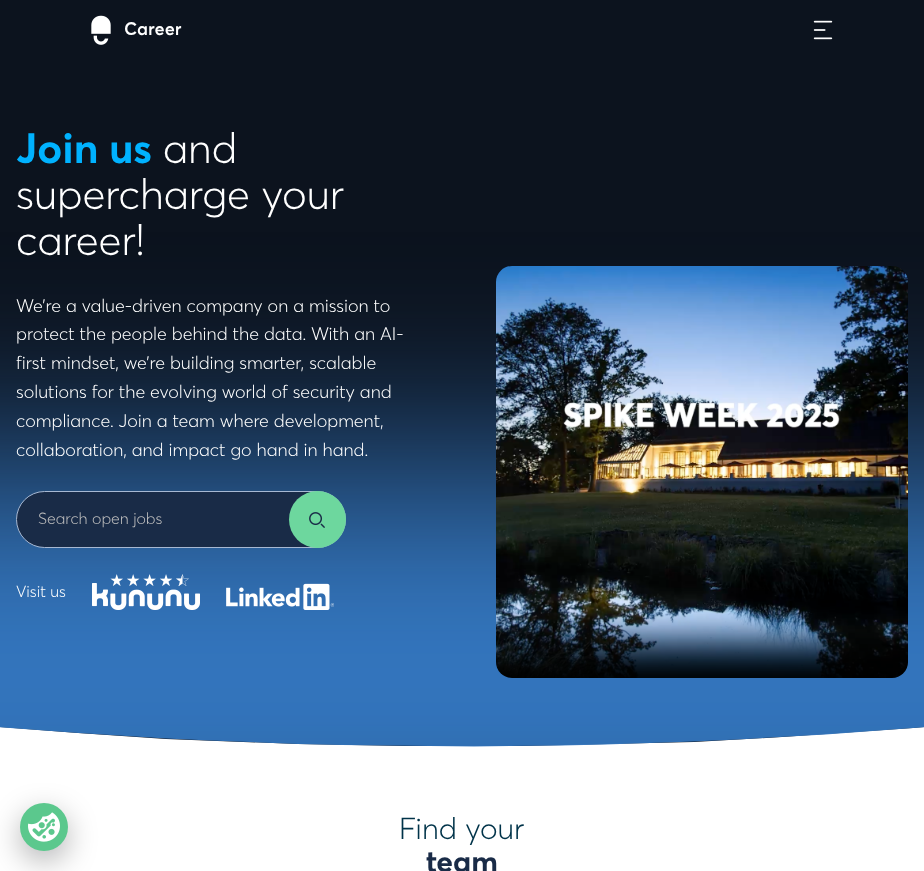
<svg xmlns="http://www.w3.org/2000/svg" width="924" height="871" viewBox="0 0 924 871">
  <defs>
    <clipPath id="clip1"><path d="M-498 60H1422V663L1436.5 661L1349.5 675.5L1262.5 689L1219 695L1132 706L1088 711L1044.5 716L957 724.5L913 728L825.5 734.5L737.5 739.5L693.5 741.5L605.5 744.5L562 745.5L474 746.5L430 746L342 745L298 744L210 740.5L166 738.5L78.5 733L-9.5 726.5L-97 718.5L-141 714L-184.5 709L-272 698L-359 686L-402.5 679L-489 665L-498 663Z"/></clipPath>
  </defs>
  <rect width="100%" height="100%" fill="rgb(255,255,255)"/>
  <rect x="0" y="0" width="924" height="60" fill="rgb(12,19,30)"/>
  <image x="91" y="15" width="20" height="30" href="pic1.png"/>
  <text x="124" y="35" font-family="'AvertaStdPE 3'" font-size="18" fill="rgb(255,255,255)">Career</text>
  <image x="813" y="20" width="20" height="20" href="pic2.png"/>
  <path d="M-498 60V663L-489 665L-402 679L-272 698L-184 709L-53 723L78 733L166 739L298 744L405 746H522L650 743L694 742L782 737L913 728L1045 716L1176 701L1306 682L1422 663V60Z" fill="rgb(12,19,30)"/>
  <g clip-path="url(#clip1)">
    <rect x="-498" y="472" width="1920" height="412" rx="206" fill="rgb(52,119,192)" filter="blur(100px)"/>
  </g>
  <text x="16" y="163" font-family="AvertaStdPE" font-size="42" fill="rgb(0,178,255)">Join us</text>
  <g font-family="'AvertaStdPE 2'" font-size="42" fill="rgb(255,255,255)">
    <text x="163" y="163">and</text>
    <text>
      <tspan x="16" y="209">supercharge your</tspan>
      <tspan x="16" y="255">career!</tspan>
    </text>
  </g>
  <g font-family="'AvertaStdPE 2'" font-size="18" fill="rgb(255,255,255)">
    <text>
      <tspan x="16" y="312">We’re a value-driven company on a mission to</tspan>
      <tspan x="16" y="340">protect the people behind the data. With an AI-</tspan>
      <tspan x="16" y="369">first mindset, we’re building smarter, scalable</tspan>
      <tspan x="16" y="398">solutions for the evolving world of security and</tspan>
      <tspan x="16" y="427">compliance. Join a team where development,</tspan>
      <tspan x="16" y="456">collaboration, and impact go hand in hand.</tspan>
    </text>
  </g>
  <rect x="16.5" y="491.5" width="329" height="56" rx="28" fill="rgb(25,43,71)" stroke="rgb(167,184,210)"/>
  <text x="38" y="524" font-family="'AvertaStdPE 2'" font-size="16" fill="rgb(191,191,191)">Search open jobs</text>
  <circle cx="317.5" cy="519.5" r="28.5" fill="rgb(109,215,158)"/>
  <image x="309" y="512" width="16" height="16" href="pic3.png"/>
  <text x="16" y="597" font-family="'AvertaStdPE 2'" font-size="16" fill="rgb(255,255,255)">Visit us</text>
  <image x="92" y="574" width="108" height="36" href="pic4.png"/>
  <image x="226" y="583" width="108" height="27" href="pic5.png"/>
  <image x="496" y="266" width="412" height="412" href="pic6.png"/>
  <text x="399" y="839" font-family="'AvertaStdPE 2'" font-size="30" fill="rgb(0,51,73)">Find your</text>
  <text x="426" y="872" font-family="AvertaStdPE" font-size="30" fill="rgb(25,43,71)">team</text>
  <rect x="20" y="813" width="48" height="48" rx="24" fill="rgba(0,0,2,0.3)" filter="blur(15px)"/>
  <circle cx="44" cy="827" r="24" fill="rgb(91,200,141)"/>
  <image x="28" y="812" width="32" height="30" href="pic7.png"/>
</svg>
